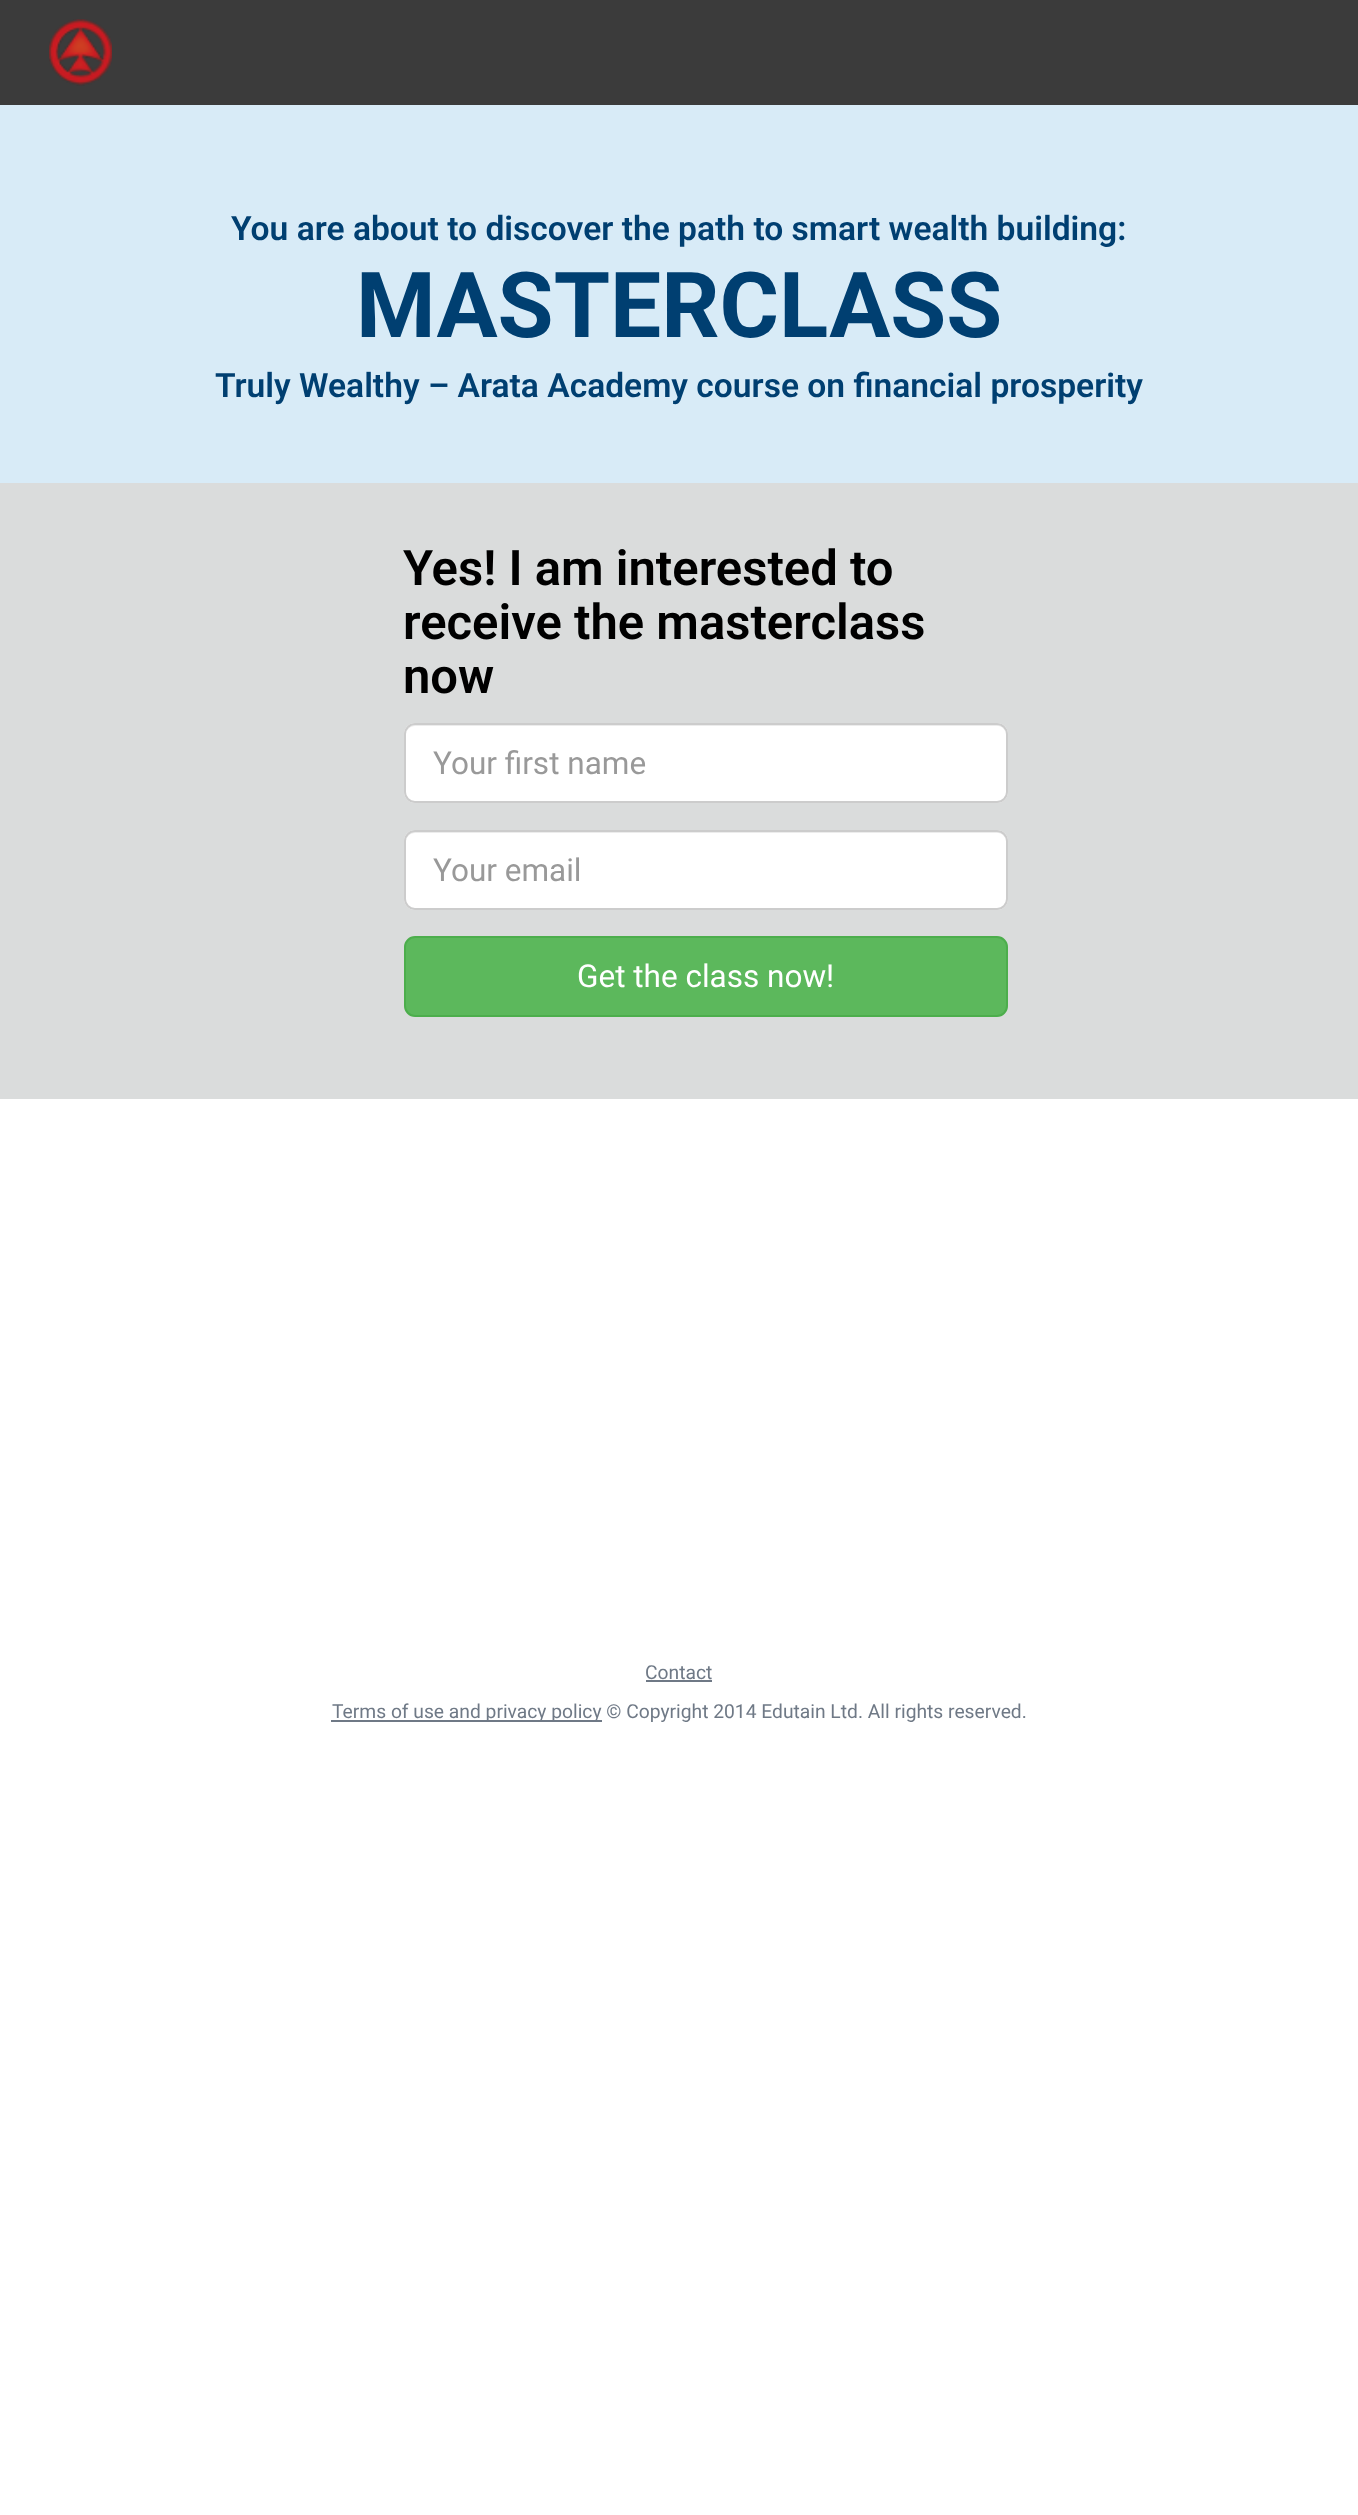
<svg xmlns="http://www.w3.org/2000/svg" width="1358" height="2515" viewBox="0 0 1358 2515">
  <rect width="100%" height="100%" fill="rgb(255,255,255)"/>
  <rect x="0" y="0" width="1358" height="105" fill="rgb(59,59,59)"/>
  <image x="49" y="19" width="63" height="67" href="pic1.png"/>
  <rect x="0" y="105" width="1358" height="378" fill="rgb(216,235,247)"/>
  <text x="231" y="240" font-family="Roboto" font-size="33.6" font-weight="600" fill="rgb(0,63,113)">You are about to discover the path to smart wealth building:</text>
  <text x="356" y="337" font-family="Roboto" font-size="91" font-weight="bold" fill="rgb(0,63,113)">MASTERCLASS</text>
  <text x="215" y="397" font-family="Roboto" font-size="33.6" font-weight="600" fill="rgb(0,63,113)">Truly Wealthy – Arata Academy course on financial prosperity</text>
  <rect x="0" y="483" width="1358" height="616" fill="rgb(218,220,220)"/>
  <g font-family="Roboto" font-size="49" font-weight="600" fill="rgb(0,0,0)">
    <text>
      <tspan x="403" y="585">Yes! I am interested to</tspan>
      <tspan x="403" y="639">receive the masterclass</tspan>
      <tspan x="403" y="693">now</tspan>
    </text>
  </g>
  <rect x="404" y="723" width="604" height="80" rx="11" fill="rgb(255,255,255)"/>
  <path d="M415 726H998C1002 726 1006 730 1006 735V734C1006 729 1002 725 997 725H415C410 725 406 729 406 734V735C406 730 410 726 415 726Z" fill="rgb(236,236,236)"/>
  <rect x="405" y="724" width="602" height="78" rx="10" fill="none" stroke="rgb(204,204,204)" stroke-width="2"/>
  <text x="433" y="774" font-family="Roboto" font-size="31.5" fill="rgb(153,153,153)">Your first name</text>
  <rect x="404" y="830" width="604" height="80" rx="11" fill="rgb(255,255,255)"/>
  <path d="M415 833H998C1002 833 1006 837 1006 842C1006 836 1003 831 997 831H415C409 831 406 836 406 842C406 837 410 833 415 833Z" fill="rgb(236,236,236)"/>
  <rect x="405" y="831" width="602" height="78" rx="10" fill="none" stroke="rgb(204,204,204)" stroke-width="2"/>
  <text x="433" y="881" font-family="Roboto" font-size="31.5" fill="rgb(153,153,153)">Your email</text>
  <rect x="405" y="937" width="602" height="79" rx="10" fill="rgb(92,184,92)" stroke="rgb(76,174,76)" stroke-width="2"/>
  <text x="577" y="987" font-family="Roboto" font-size="31.5" fill="rgb(255,255,255)">Get the class now!</text>
  <text x="645" y="1679" font-family="Roboto" font-size="19.25" fill="rgb(111,121,134)">Contact</text>
  <rect x="646" y="1680" width="66" height="2" fill="rgb(111,121,134)"/>
  <rect x="331" y="1720" width="271" height="2" fill="rgb(111,121,134)"/>
  <text x="332" y="1718" font-family="Roboto" font-size="19.25" fill="rgb(111,121,134)">Terms of use and privacy policy © Copyright 2014 Edutain Ltd. All rights reserved.</text>
</svg>
